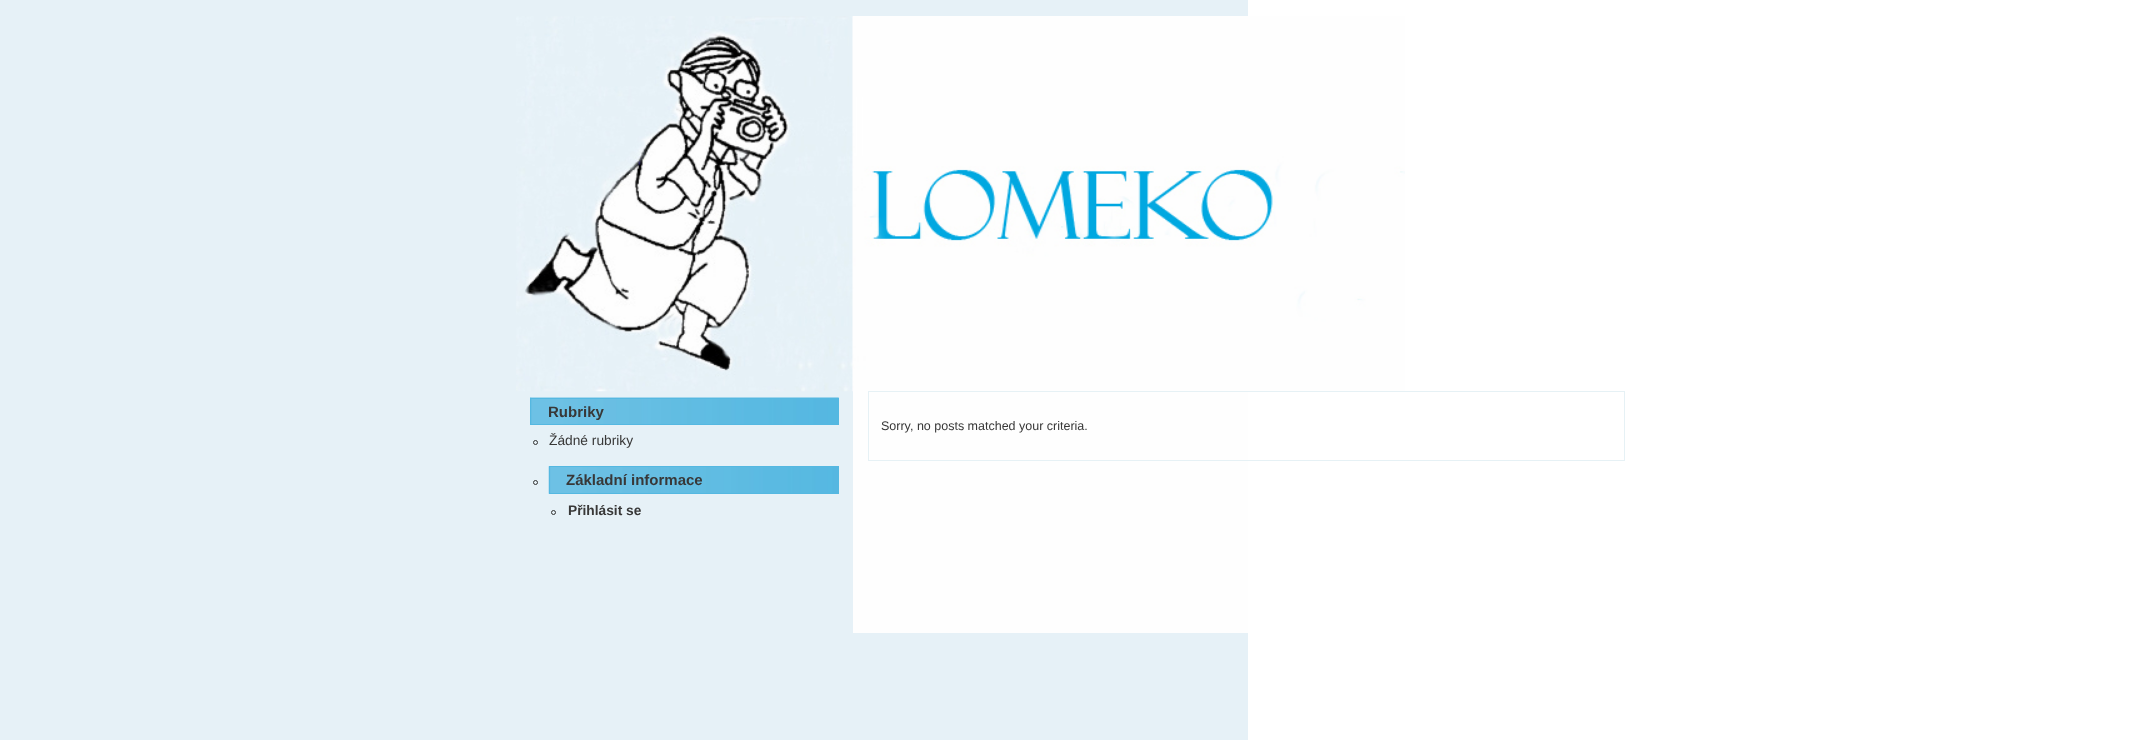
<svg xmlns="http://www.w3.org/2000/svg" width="2154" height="740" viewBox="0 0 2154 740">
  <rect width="100%" height="100%" fill="rgb(255,255,255)"/>
  <rect x="0" y="0" width="1248" height="740" fill="rgb(230,241,247)"/>
  <rect x="853" y="16" width="395" height="617" fill="rgb(254,254,254)"/>
  <image x="516" y="16" width="889" height="376" href="pic1.png"/>
  <image x="530" y="397" width="309" height="27" href="pic2.png"/>
  <rect x="530.5" y="398.5" width="308" height="26" fill="none" stroke="rgb(85,184,225)"/>
  <text x="548" y="417" font-family="Liberation Sans" font-size="15" font-weight="bold" fill="rgb(56,56,56)">Rubriky</text>
  <circle cx="535.5" cy="442.5" r="2" fill="none" stroke="rgb(51,51,51)"/>
  <text x="549" y="445" font-family="Liberation Sans" font-size="13.75" fill="rgb(56,56,56)">Žádné rubriky</text>
  <circle cx="535.5" cy="482.5" r="2" fill="none" stroke="rgb(51,51,51)"/>
  <image x="548" y="466" width="290" height="28" href="pic3.png"/>
  <rect x="549.5" y="466.5" width="289" height="27" fill="none" stroke="rgb(85,184,225)"/>
  <text x="566" y="485" font-family="Liberation Sans" font-size="15" font-weight="bold" fill="rgb(56,56,56)">Základní informace</text>
  <circle cx="553.5" cy="512.5" r="2" fill="none" stroke="rgb(51,51,51)"/>
  <text x="568" y="515" font-family="Liberation Sans" font-size="13.75" font-weight="bold" fill="rgb(56,56,56)">Přihlásit se</text>
  <rect x="868.5" y="391.5" width="756" height="69" fill="none" stroke="rgb(230,241,245)"/>
  <text x="881" y="430" font-family="Liberation Sans" font-size="12.5" fill="rgb(56,56,56)">Sorry, no posts matched your criteria.</text>
</svg>
